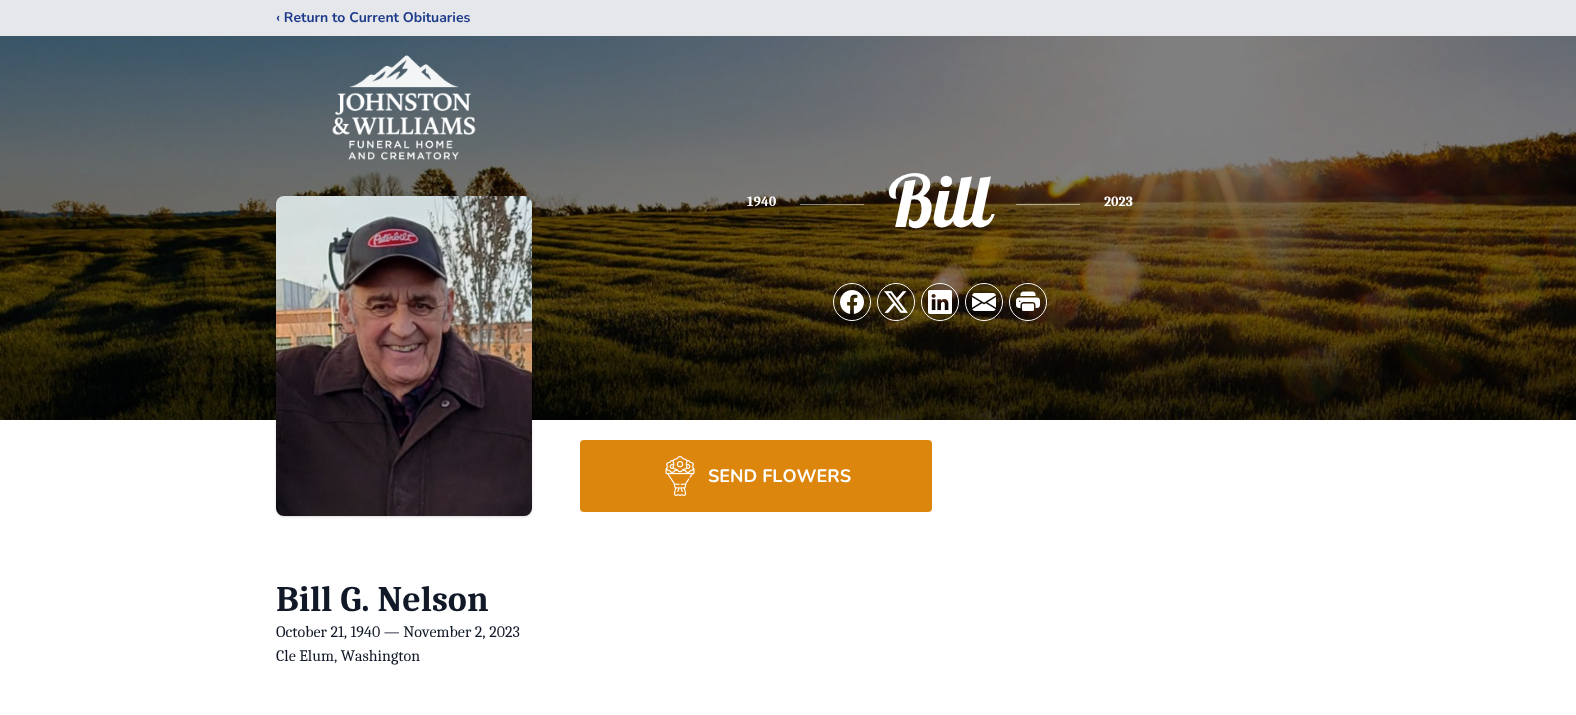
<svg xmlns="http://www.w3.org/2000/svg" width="1576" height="715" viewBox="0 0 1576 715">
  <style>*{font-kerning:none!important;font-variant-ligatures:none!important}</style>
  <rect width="100%" height="100%" fill="rgb(255,255,255)"/>
  <rect x="0" y="0" width="1576" height="36" fill="rgb(229,231,235)"/>
  <text x="276" y="22" font-family="Nunito" font-size="14" font-weight="bold" fill="rgb(30,58,138)">‹ Return to Current Obituaries</text>
  <image x="0" y="36" width="1576" height="384" href="pic1.png"/>
  <image x="332" y="55" width="144" height="105" href="pic2.png"/>
  <rect x="277" y="198" width="254" height="318" rx="7" fill="rgba(0,0,0,0.1)" filter="blur(1px)"/>
  <rect x="276" y="197" width="256" height="320" rx="8" fill="rgba(0,0,0,0.1)" filter="blur(1.5px)"/>
  <image x="276" y="196" width="256" height="320" href="pic3.png"/>
  <text x="747" y="206" font-family="Caladea" font-size="14" font-weight="bold" fill="rgb(255,255,255)">1940</text>
  <rect x="800" y="204" width="64" height="1" fill="rgba(255,255,255,0.5)"/>
  <text x="888" y="227" font-family="Lobster" font-size="72" fill="rgb(255,255,255)">Bill</text>
  <rect x="1016" y="204" width="64" height="1" fill="rgba(255,255,255,0.5)"/>
  <text x="1104" y="206" font-family="Caladea" font-size="14" font-weight="bold" fill="rgb(255,255,255)">2023</text>
  <circle cx="852" cy="302" r="18.5" fill="none" stroke="rgb(255,255,255)"/>
  <circle cx="852" cy="302" r="18" fill="rgba(0,0,0,0.2)"/>
  <image x="840" y="290" width="24" height="24" href="pic4.png"/>
  <circle cx="896" cy="302" r="18.5" fill="none" stroke="rgb(255,255,255)"/>
  <circle cx="896" cy="302" r="18" fill="rgba(0,0,0,0.2)"/>
  <image x="884" y="291" width="24" height="22" href="pic5.png"/>
  <circle cx="940" cy="302" r="18.5" fill="none" stroke="rgb(255,255,255)"/>
  <circle cx="940" cy="302" r="18" fill="rgba(0,0,0,0.2)"/>
  <image x="928" y="290" width="24" height="24" href="pic6.png"/>
  <circle cx="984" cy="302" r="18.5" fill="none" stroke="rgb(255,255,255)"/>
  <circle cx="984" cy="302" r="18" fill="rgba(0,0,0,0.2)"/>
  <image x="972" y="293" width="24" height="18" href="pic7.png"/>
  <circle cx="1028" cy="302" r="18.5" fill="none" stroke="rgb(255,255,255)"/>
  <circle cx="1028" cy="302" r="18" fill="rgba(0,0,0,0.2)"/>
  <image x="1016" y="291" width="24" height="20" href="pic8.png"/>
  <rect x="580" y="440" width="352" height="72" rx="4" fill="rgb(220,134,13)"/>
  <image x="665" y="456" width="30" height="40" href="pic9.png"/>
  <text x="708" y="482" font-family="Nunito" font-size="18" font-weight="bold" fill="rgb(255,255,255)">SEND FLOWERS</text>
  <text x="276" y="611" font-family="Caladea" font-size="36" font-weight="bold" fill="rgb(17,24,39)">Bill G. Nelson</text>
  <g font-family="Caladea" font-size="16" fill="rgb(17,24,39)">
    <text>
      <tspan x="276" y="637">October 21, 1940 — November 2, 2023</tspan>
      <tspan x="276" y="661">Cle Elum, Washington</tspan>
    </text>
  </g>
</svg>
